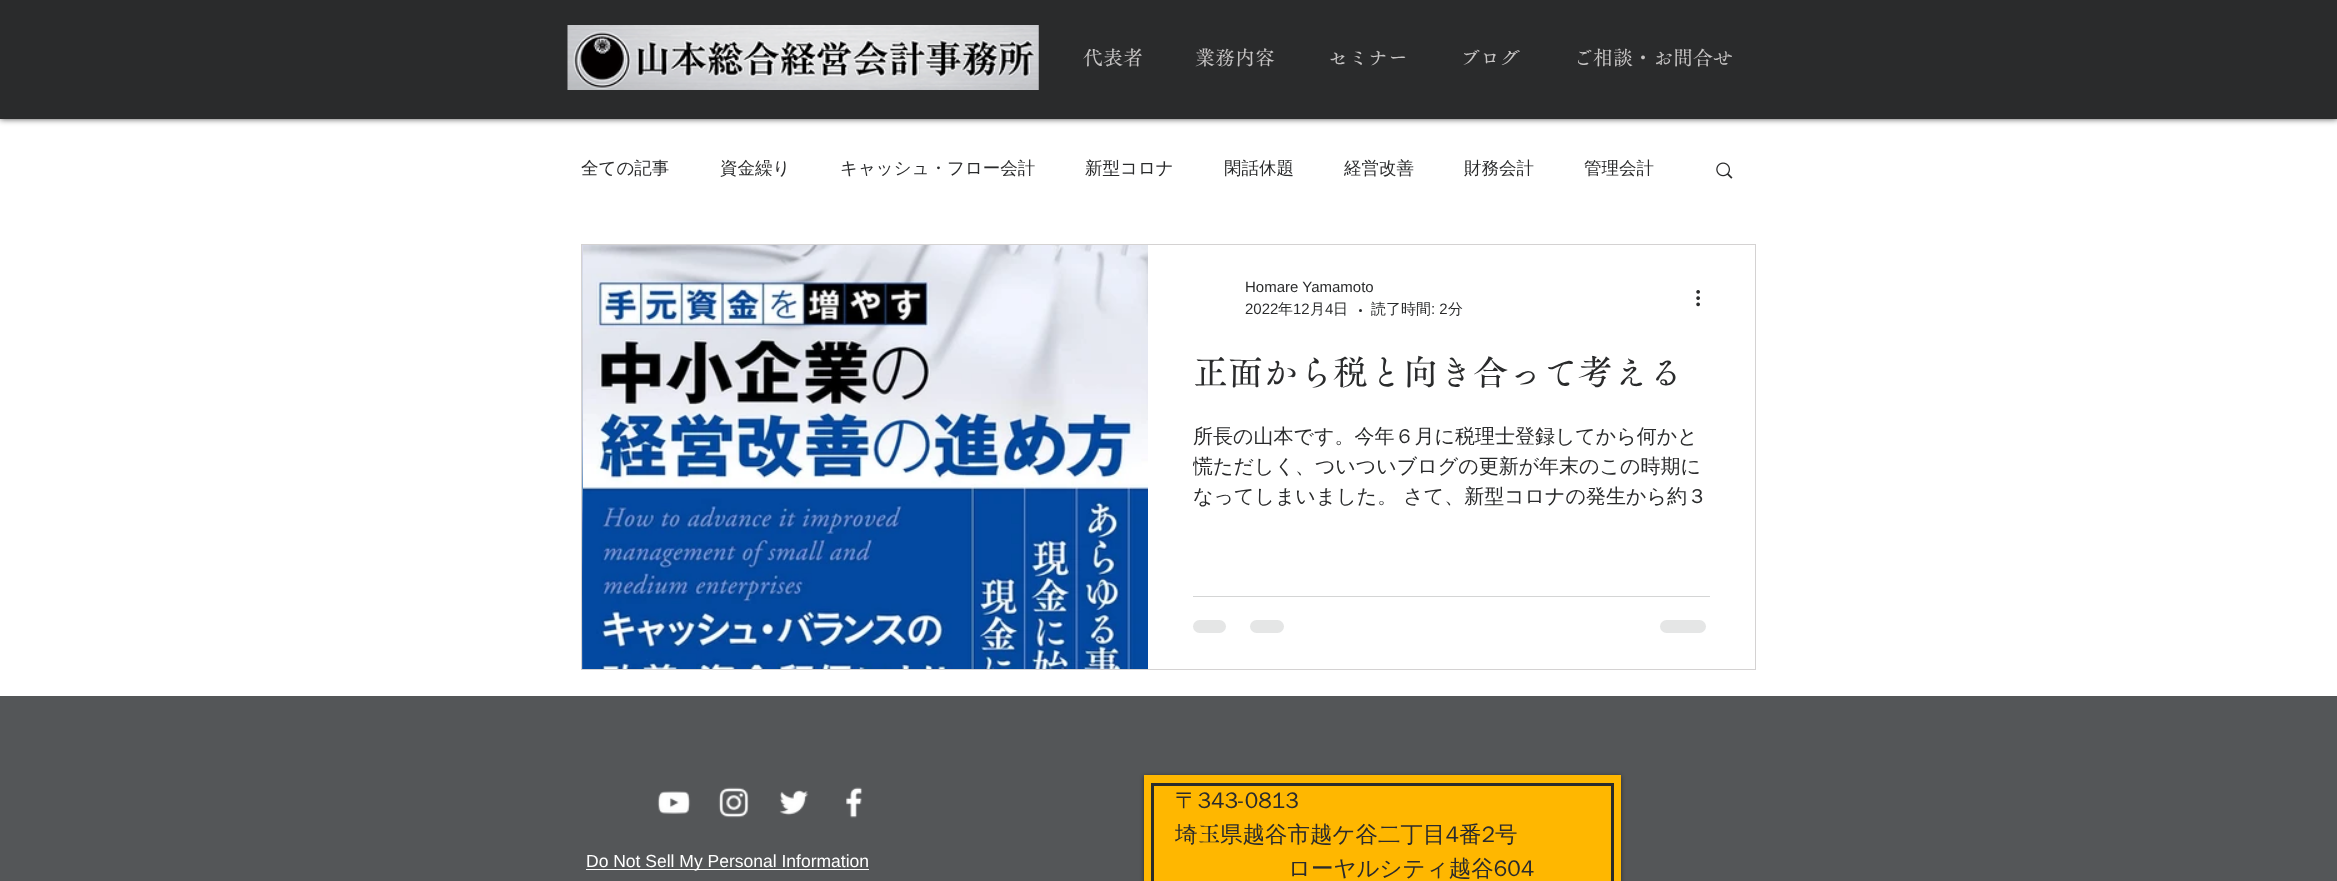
<svg xmlns="http://www.w3.org/2000/svg" width="2337" height="881" viewBox="0 0 2337 881">
  <defs>
    <clipPath id="clip1"><rect x="1193" y="421" width="517" height="90"/></clipPath>
  </defs>
  <rect width="100%" height="100%" fill="rgb(255,255,255)"/>
  <rect x="0" y="0" width="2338" height="119" fill="rgba(0,0,0,0.7)" filter="blur(3px)"/>
  <rect x="0" y="0" width="2337" height="119" fill="rgb(42,43,44)"/>
  <image x="567" y="25" width="472" height="65" href="pic1.png"/>
  <g font-family="'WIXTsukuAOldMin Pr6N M'" font-size="20" font-weight="500" fill="rgb(197,195,195)">
    <text x="1083" y="65">代表者</text>
    <text x="1195" y="65">業務内容</text>
    <text x="1328" y="65">セミナー</text>
    <text x="1460" y="65">ブログ</text>
    <text x="1573" y="65">ご相談・お問合せ</text>
  </g>
  <g font-family="WenQuanYi Zen Hei" font-size="17.5" font-weight="500" fill="rgb(42,43,44)">
    <text x="581" y="174">全ての記事</text>
    <text x="720" y="174">資金繰り</text>
    <text x="840" y="174">キャッシュ・フロー会計</text>
    <text x="1085" y="174">新型コロナ</text>
    <text x="1224" y="174">閑話休題</text>
    <text x="1344" y="174">経営改善</text>
    <text x="1464" y="174">財務会計</text>
    <text x="1584" y="174">管理会計</text>
  </g>
  <image x="1716" y="162" width="17" height="17" href="pic2.png"/>
  <rect x="581.5" y="244.5" width="1174" height="425" fill="none" stroke="rgb(212,210,210)"/>
  <image x="582" y="245" width="1" height="424" href="pic3.png"/>
  <image x="583" y="245" width="565" height="424" href="pic4.png"/>
  <g font-family="Liberation Sans" font-size="15" fill="rgb(42,43,44)">
    <text>
      <tspan x="1245" y="292">Homare Yamamoto</tspan>
      <tspan x="1245" y="314">2022</tspan>
    </text>
  </g>
  <text x="1278" y="314" font-family="WenQuanYi Zen Hei" font-size="15" font-weight="500" fill="rgb(42,43,44)">年</text>
  <text x="1293" y="314" font-family="Liberation Sans" font-size="15" fill="rgb(42,43,44)">12</text>
  <text x="1310" y="314" font-family="WenQuanYi Zen Hei" font-size="15" font-weight="500" fill="rgb(42,43,44)">月</text>
  <text x="1325" y="314" font-family="Liberation Sans" font-size="15" fill="rgb(42,43,44)">4</text>
  <text x="1333" y="314" font-family="WenQuanYi Zen Hei" font-size="15" font-weight="500" fill="rgb(42,43,44)">日</text>
  <circle cx="1360.5" cy="310.5" r="1.5" fill="rgb(42,43,44)"/>
  <text x="1371" y="314" font-family="WenQuanYi Zen Hei" font-size="15" font-weight="500" fill="rgb(42,43,44)">読了時間</text>
  <text x="1431" y="314" font-family="Liberation Sans" font-size="15" fill="rgb(42,43,44)">: 2</text>
  <text x="1448" y="314" font-family="WenQuanYi Zen Hei" font-size="15" font-weight="500" fill="rgb(42,43,44)">分</text>
  <image x="1696" y="290" width="4" height="17" href="pic5.png"/>
  <text x="1193" y="385" font-family="'WIXTsukuAOldMin Pr6N M'" font-size="35" font-weight="500" fill="rgb(42,43,44)">正面から税と向き合って考える</text>
  <text x="1193" y="443" font-family="WenQuanYi Zen Hei" font-size="20" font-weight="500" fill="rgb(42,43,44)">所長の山本です。今年６月に税理士登録してから何かと</text>
  <g clip-path="url(#clip1)">
    <text x="1193" y="473" font-family="WenQuanYi Zen Hei" font-size="20" font-weight="500" fill="rgb(42,43,44)">慌ただしく、ついついブログの更新が年末のこの時期に</text>
  </g>
  <text x="1193" y="503" font-family="WenQuanYi Zen Hei" font-size="20" font-weight="500" fill="rgb(42,43,44)">なってしまいました。 さて、新型コロナの発生から約３</text>
  <rect x="1193" y="596" width="517" height="1" fill="rgb(212,213,213)"/>
  <rect x="1193" y="620" width="33" height="13" rx="6.5" fill="rgb(229,230,230)"/>
  <rect x="1250" y="620" width="34" height="13" rx="6.5" fill="rgb(229,230,230)"/>
  <rect x="1660" y="620" width="46" height="13" rx="6.5" fill="rgb(229,230,230)"/>
  <rect x="0" y="696" width="2337" height="185" fill="rgb(84,86,88)"/>
  <image x="657" y="791" width="34" height="23" href="pic6.png"/>
  <image x="718" y="787" width="31" height="31" href="pic7.png"/>
  <image x="779" y="790" width="30" height="26" href="pic8.png"/>
  <image x="846" y="787" width="17" height="31" href="pic9.png"/>
  <rect x="1144" y="776" width="477" height="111" fill="rgba(0,0,0,0.5)" filter="blur(2px)"/>
  <rect x="1144" y="775" width="477" height="106" fill="rgb(255,183,0)"/>
  <rect x="1152.5" y="784.5" width="460" height="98" fill="none" stroke="rgb(42,43,44)" stroke-width="3"/>
  <g font-family="WenQuanYi Zen Hei" font-size="22.5" font-weight="500" fill="rgb(42,43,44)">
    <text>
      <tspan x="1175" y="808">〒343-0813</tspan>
      <tspan x="1175" y="842">埼</tspan>
    </text>
  </g>
  <text x="1198" y="842" font-family="'WIXTsukuAOldMin Pr6N M'" font-size="22.5" font-weight="500" fill="rgb(42,43,44)">玉</text>
  <g font-family="WenQuanYi Zen Hei" font-size="22.5" font-weight="500" fill="rgb(42,43,44)">
    <text x="1220" y="842">県越谷市越ケ谷二丁目4番2号</text>
    <text x="1288" y="876">ローヤルシティ越谷604</text>
  </g>
  <rect x="586" y="869" width="283" height="1" fill="rgb(255,255,255)"/>
  <text x="586" y="867" font-family="Liberation Sans" font-size="17.5" fill="rgb(255,255,255)">Do Not Sell My Personal Information</text>
</svg>
